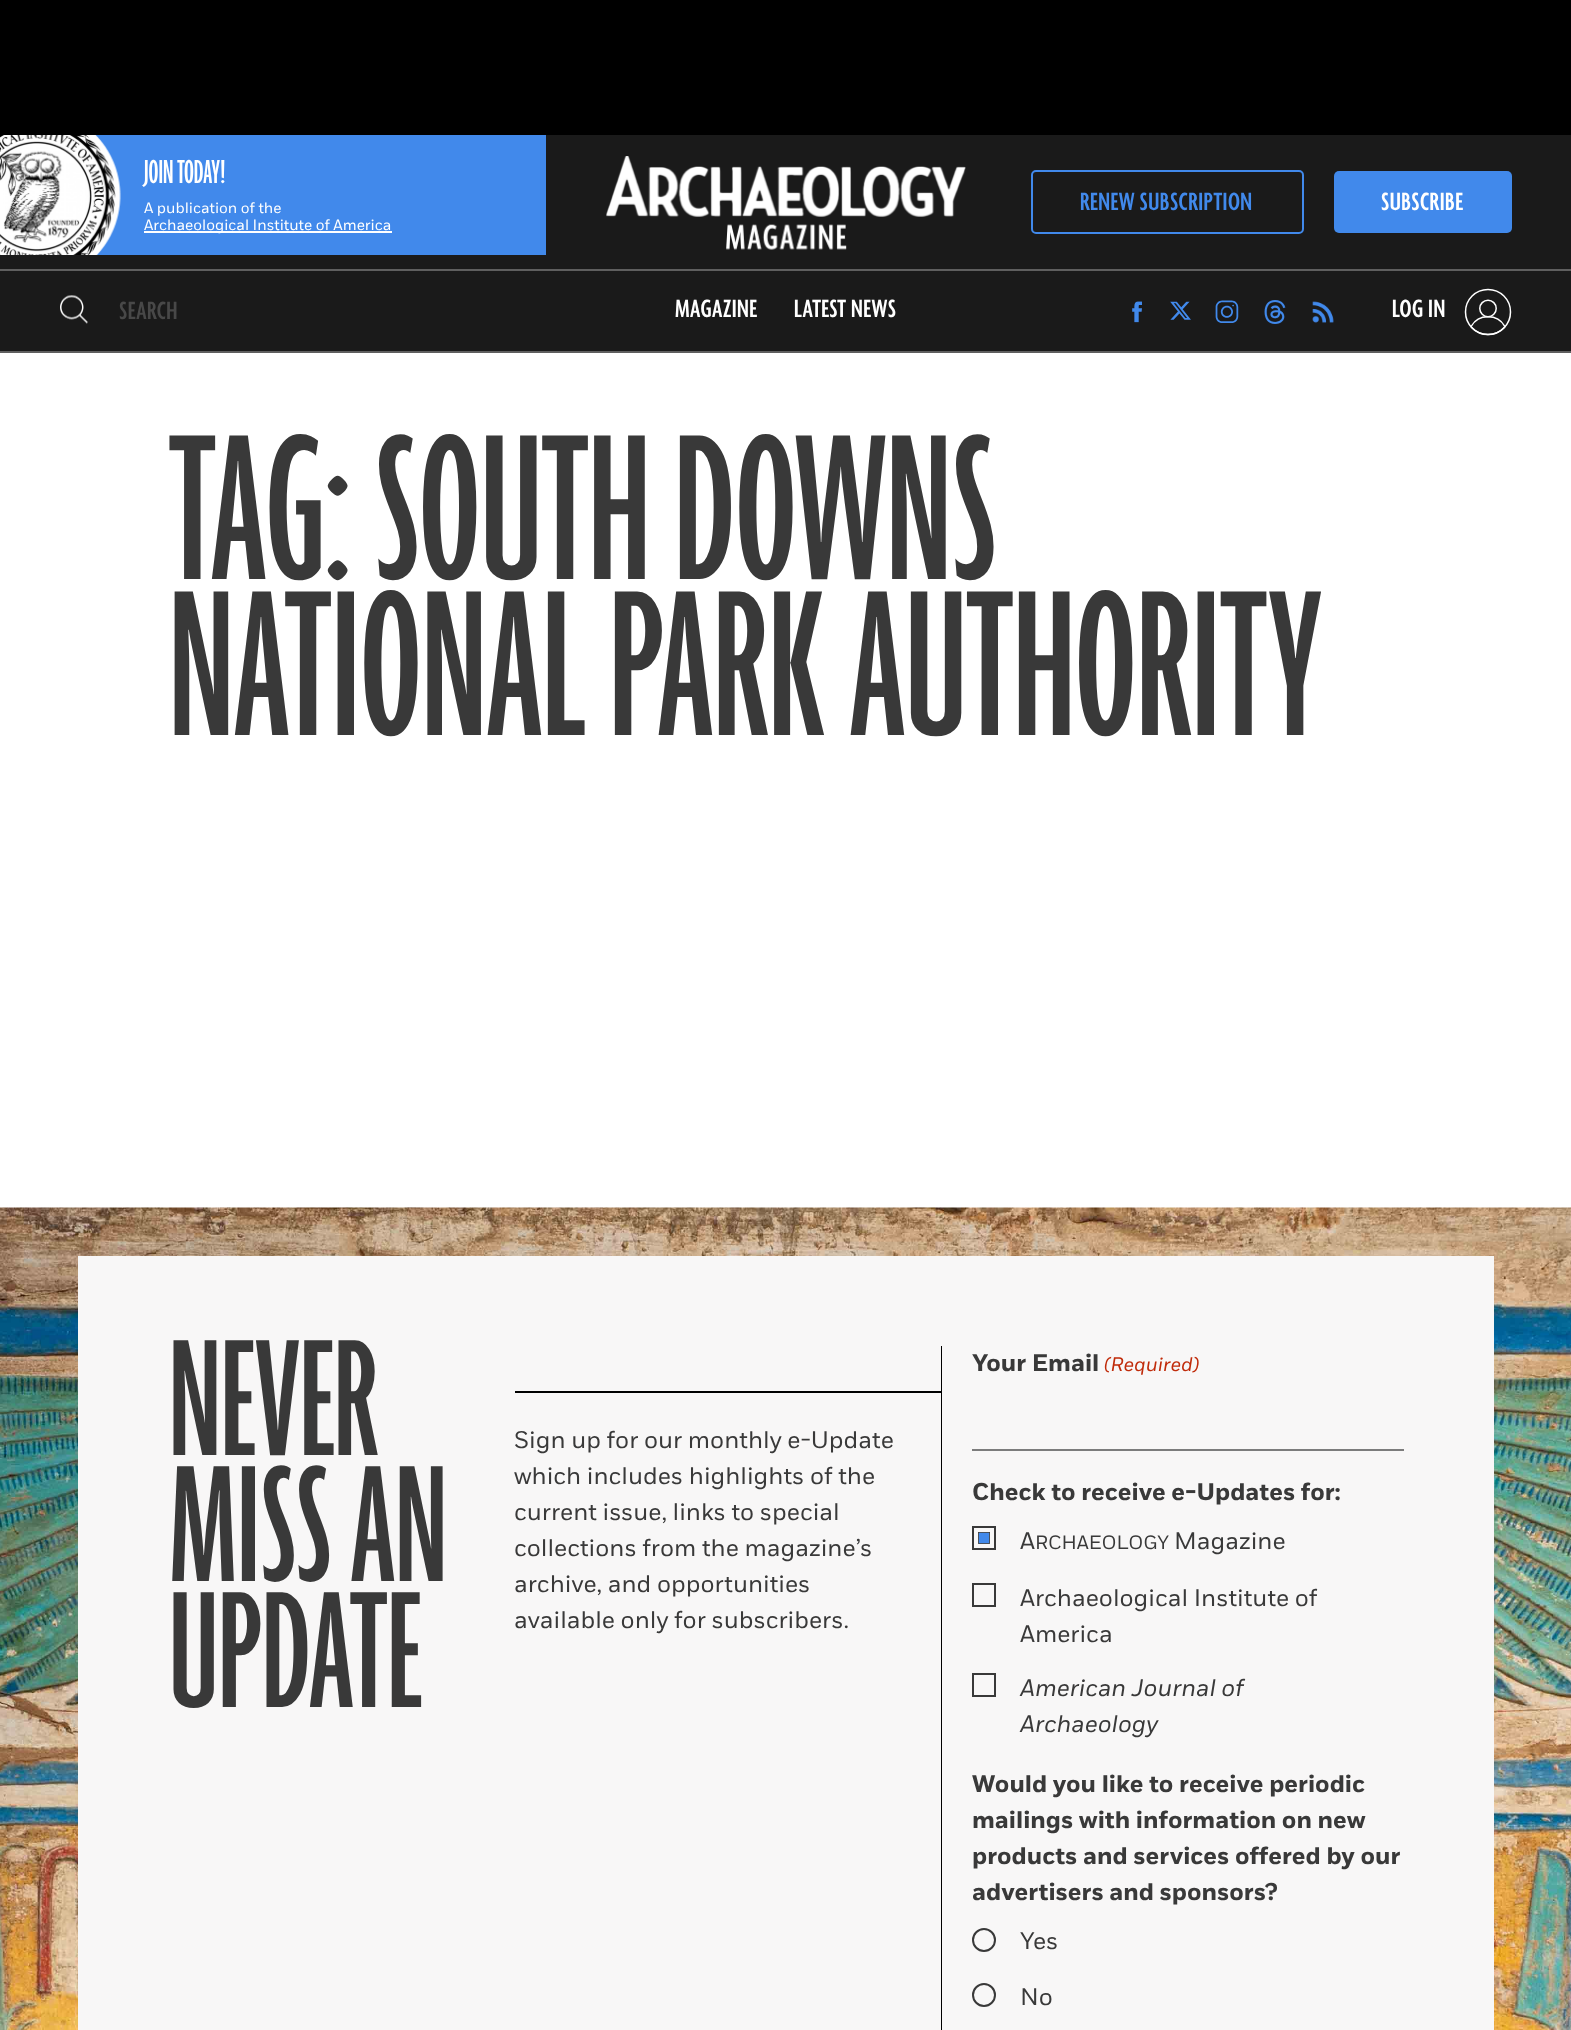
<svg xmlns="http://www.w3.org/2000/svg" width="1571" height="2030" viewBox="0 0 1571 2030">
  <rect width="100%" height="100%" fill="rgb(255,255,255)"/>
  <rect x="0" y="0" width="1571" height="135" fill="rgb(0,0,0)"/>
  <rect x="0" y="135" width="1571" height="216" fill="rgb(26,26,26)"/>
  <image x="606" y="156" width="360" height="94" href="pic1.png"/>
  <rect x="0" y="269" width="1571" height="2" fill="rgb(95,95,95)"/>
  <rect x="95" y="135" width="451" height="120" fill="rgb(65,137,235)"/>
  <image x="0" y="135" width="121" height="120" href="pic2.png"/>
  <text x="144" y="183" font-family="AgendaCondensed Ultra" font-size="36" font-weight="900" fill="rgb(255,255,255)">JOIN TODAY!</text>
  <text x="144" y="213" font-family="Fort" font-size="15" fill="rgb(255,255,255)">A publication of the</text>
  <rect x="144" y="231" width="248" height="2" fill="rgb(255,255,255)"/>
  <text x="144" y="230" font-family="Fort" font-size="15" fill="rgb(255,255,255)">Archaeological Institute of America</text>
  <rect x="1032" y="171" width="271" height="62" rx="4" fill="none" stroke="rgb(65,137,235)" stroke-width="2"/>
  <text x="1080" y="210" font-family="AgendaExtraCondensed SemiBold" font-size="27" font-weight="600" letter-spacing="0.5" fill="rgb(65,137,235)">RENEW SUBSCRIPTION</text>
  <rect x="1334" y="171" width="178" height="62" rx="5" fill="rgb(65,137,235)"/>
  <text x="1381" y="210" font-family="AgendaExtraCondensed SemiBold" font-size="27" font-weight="600" letter-spacing="0.5" fill="rgb(255,255,255)">SUBSCRIBE</text>
  <image x="60" y="295" width="28" height="29" href="pic3.png"/>
  <text x="119" y="319" font-family="AgendaExtraCondensed SemiBold" font-size="27" font-weight="600" letter-spacing="0.5" fill="rgb(72,72,72)">SEARCH</text>
  <g font-family="AgendaExtraCondensed SemiBold" font-size="27" font-weight="600" letter-spacing="0.5" fill="rgb(255,255,255)">
    <text x="675" y="317">MAGAZINE</text>
    <text x="794" y="317">LATEST NEWS</text>
  </g>
  <image x="1132" y="301" width="10" height="22" href="pic4.png"/>
  <image x="1170" y="301" width="21" height="19" href="pic5.png"/>
  <image x="1215" y="300" width="24" height="23" href="pic6.png"/>
  <image x="1264" y="300" width="22" height="24" href="pic7.png"/>
  <image x="1312" y="301" width="22" height="22" href="pic8.png"/>
  <text x="1392" y="317" font-family="AgendaExtraCondensed SemiBold" font-size="27" font-weight="600" letter-spacing="0.5" fill="rgb(255,255,255)">LOG IN</text>
  <image x="1464" y="288" width="48" height="48" href="pic9.png"/>
  <rect x="0" y="351" width="1571" height="2" fill="rgb(95,95,95)"/>
  <g font-family="AgendaCondensed Ultra" font-size="225" font-weight="900" fill="rgb(57,57,57)">
    <text>
      <tspan x="169" y="579">TAG: SOUTH DOWNS</tspan>
      <tspan x="169" y="735">NATIONAL PARK AUTHORITY</tspan>
    </text>
  </g>
  <image x="0" y="1207" width="1571" height="823" href="pic10.png"/>
  <rect x="78" y="1256" width="1416" height="774" fill="rgb(248,247,247)"/>
  <g font-family="AgendaCondensed Ultra" font-size="180" font-weight="900" fill="rgb(57,57,57)">
    <text>
      <tspan x="169" y="1455">NEVER</tspan>
      <tspan x="169" y="1581">MISS AN</tspan>
      <tspan x="169" y="1707">UPDATE</tspan>
    </text>
  </g>
  <rect x="515" y="1391" width="426" height="2" fill="rgb(0,0,0)"/>
  <g font-family="Fort" font-size="24" fill="rgb(57,57,57)">
    <text>
      <tspan x="514" y="1448">Sign up for our monthly e-Update</tspan>
      <tspan x="514" y="1484">which includes highlights of the</tspan>
      <tspan x="514" y="1520">current issue, links to special</tspan>
      <tspan x="514" y="1556">collections from the magazine’s</tspan>
      <tspan x="514" y="1592">archive, and opportunities</tspan>
      <tspan x="514" y="1628">available only for subscribers.</tspan>
    </text>
  </g>
  <rect x="941" y="1346" width="1" height="684" fill="rgb(0,0,0)"/>
  <text x="972" y="1371" font-family="Fort" font-size="24" font-weight="bold" fill="rgb(57,57,57)">Your Email</text>
  <text x="1104" y="1371" font-family="Fort" font-size="19.5" font-style="italic" fill="rgb(192,43,10)">(Required)</text>
  <rect x="972" y="1449" width="432" height="2" fill="rgb(124,124,124)"/>
  <text x="972" y="1500" font-family="Fort" font-size="24" font-weight="bold" fill="rgb(57,57,57)">Check to receive e-Updates for:</text>
  <rect x="973" y="1527" width="22" height="22" fill="none" stroke="rgb(57,57,57)" stroke-width="2"/>
  <rect x="978.4" y="1532.4" width="11.2" height="11.2" fill="rgb(65,137,235)" stroke="rgb(57,57,57)" stroke-width="0.8"/>
  <text x="1020" y="1549" font-family="Fort" font-size="24" fill="rgb(57,57,57)">A</text>
  <text x="1035" y="1549" font-family="Fort" font-size="19.25" fill="rgb(57,57,57)">RCHAEOLOGY</text>
  <text x="1174" y="1549" font-family="Fort" font-size="24" fill="rgb(57,57,57)">Magazine</text>
  <rect x="973" y="1584" width="22" height="22" fill="none" stroke="rgb(57,57,57)" stroke-width="2"/>
  <g font-family="Fort" font-size="24" fill="rgb(57,57,57)">
    <text>
      <tspan x="1020" y="1606">Archaeological Institute of</tspan>
      <tspan x="1020" y="1642">America</tspan>
    </text>
  </g>
  <rect x="973" y="1674" width="22" height="22" fill="none" stroke="rgb(57,57,57)" stroke-width="2"/>
  <g font-family="Fort" font-size="24" font-style="italic" fill="rgb(57,57,57)">
    <text>
      <tspan x="1020" y="1696">American Journal of</tspan>
      <tspan x="1020" y="1732">Archaeology</tspan>
    </text>
  </g>
  <g font-family="Fort" font-size="24" font-weight="bold" fill="rgb(57,57,57)">
    <text>
      <tspan x="972" y="1792">Would you like to receive periodic</tspan>
      <tspan x="972" y="1828">mailings with information on new</tspan>
      <tspan x="972" y="1864">products and services offered by our</tspan>
      <tspan x="972" y="1900">advertisers and sponsors?</tspan>
    </text>
  </g>
  <circle cx="984" cy="1940" r="11" fill="none" stroke="rgb(57,57,57)" stroke-width="2"/>
  <text x="1020" y="1949" font-family="Fort" font-size="24" fill="rgb(57,57,57)">Yes</text>
  <circle cx="984" cy="1995" r="11" fill="none" stroke="rgb(57,57,57)" stroke-width="2"/>
  <text x="1020" y="2005" font-family="Fort" font-size="24" fill="rgb(57,57,57)">No</text>
</svg>
